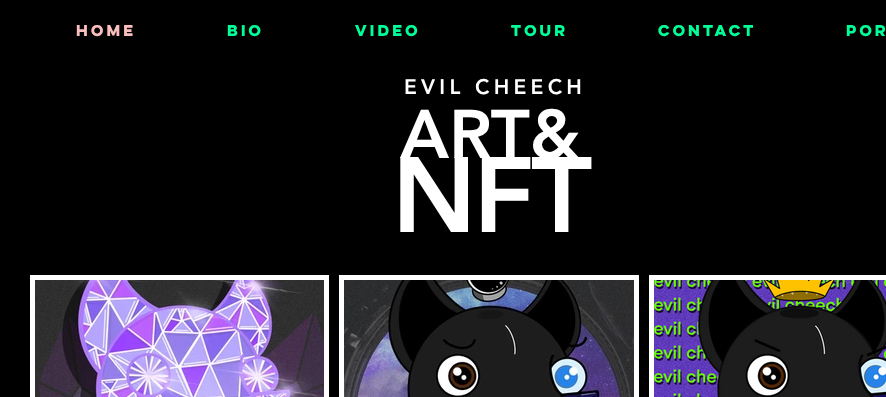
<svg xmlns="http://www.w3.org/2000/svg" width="886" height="397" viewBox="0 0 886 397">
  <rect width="100%" height="100%" fill="rgb(0,0,0)"/>
  <text x="76" y="36" font-family="'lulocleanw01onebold'" font-size="14" font-weight="bold" fill="rgb(250,191,188)">HOME</text>
  <g font-family="'lulocleanw01onebold'" font-size="14" font-weight="bold" fill="rgb(0,255,153)">
    <text x="227" y="36">BIO</text>
    <text x="355" y="36">VIDEO</text>
    <text x="511" y="36">TOUR</text>
    <text x="658" y="36">CONTACT</text>
    <text x="846" y="36">POR</text>
  </g>
  <text x="404" y="94" font-family="'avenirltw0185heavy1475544'" font-size="21" font-weight="900" letter-spacing="4.25" fill="rgb(255,255,255)">EVIL CHEECH</text>
  <text x="400" y="158" font-family="'avenirltw0185heavy1475544'" font-size="68" font-weight="900" fill="rgb(255,255,255)">ART&amp;</text>
  <text x="392" y="232" font-family="'avenirltw0185heavy1475544'" font-size="106" font-weight="900" letter-spacing="-3" fill="rgb(255,255,255)">NFT</text>
  <rect x="32.5" y="277.5" width="294" height="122" fill="none" stroke="rgb(255,255,255)" stroke-width="5"/>
  <image x="35" y="280" width="289" height="117" href="pic1.png"/>
  <rect x="341.5" y="277.5" width="295" height="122" fill="none" stroke="rgb(255,255,255)" stroke-width="5"/>
  <image x="344" y="280" width="290" height="117" href="pic2.png"/>
  <rect x="651.5" y="277.5" width="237" height="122" fill="none" stroke="rgb(255,255,255)" stroke-width="5"/>
  <image x="654" y="280" width="232" height="117" href="pic3.png"/>
</svg>
